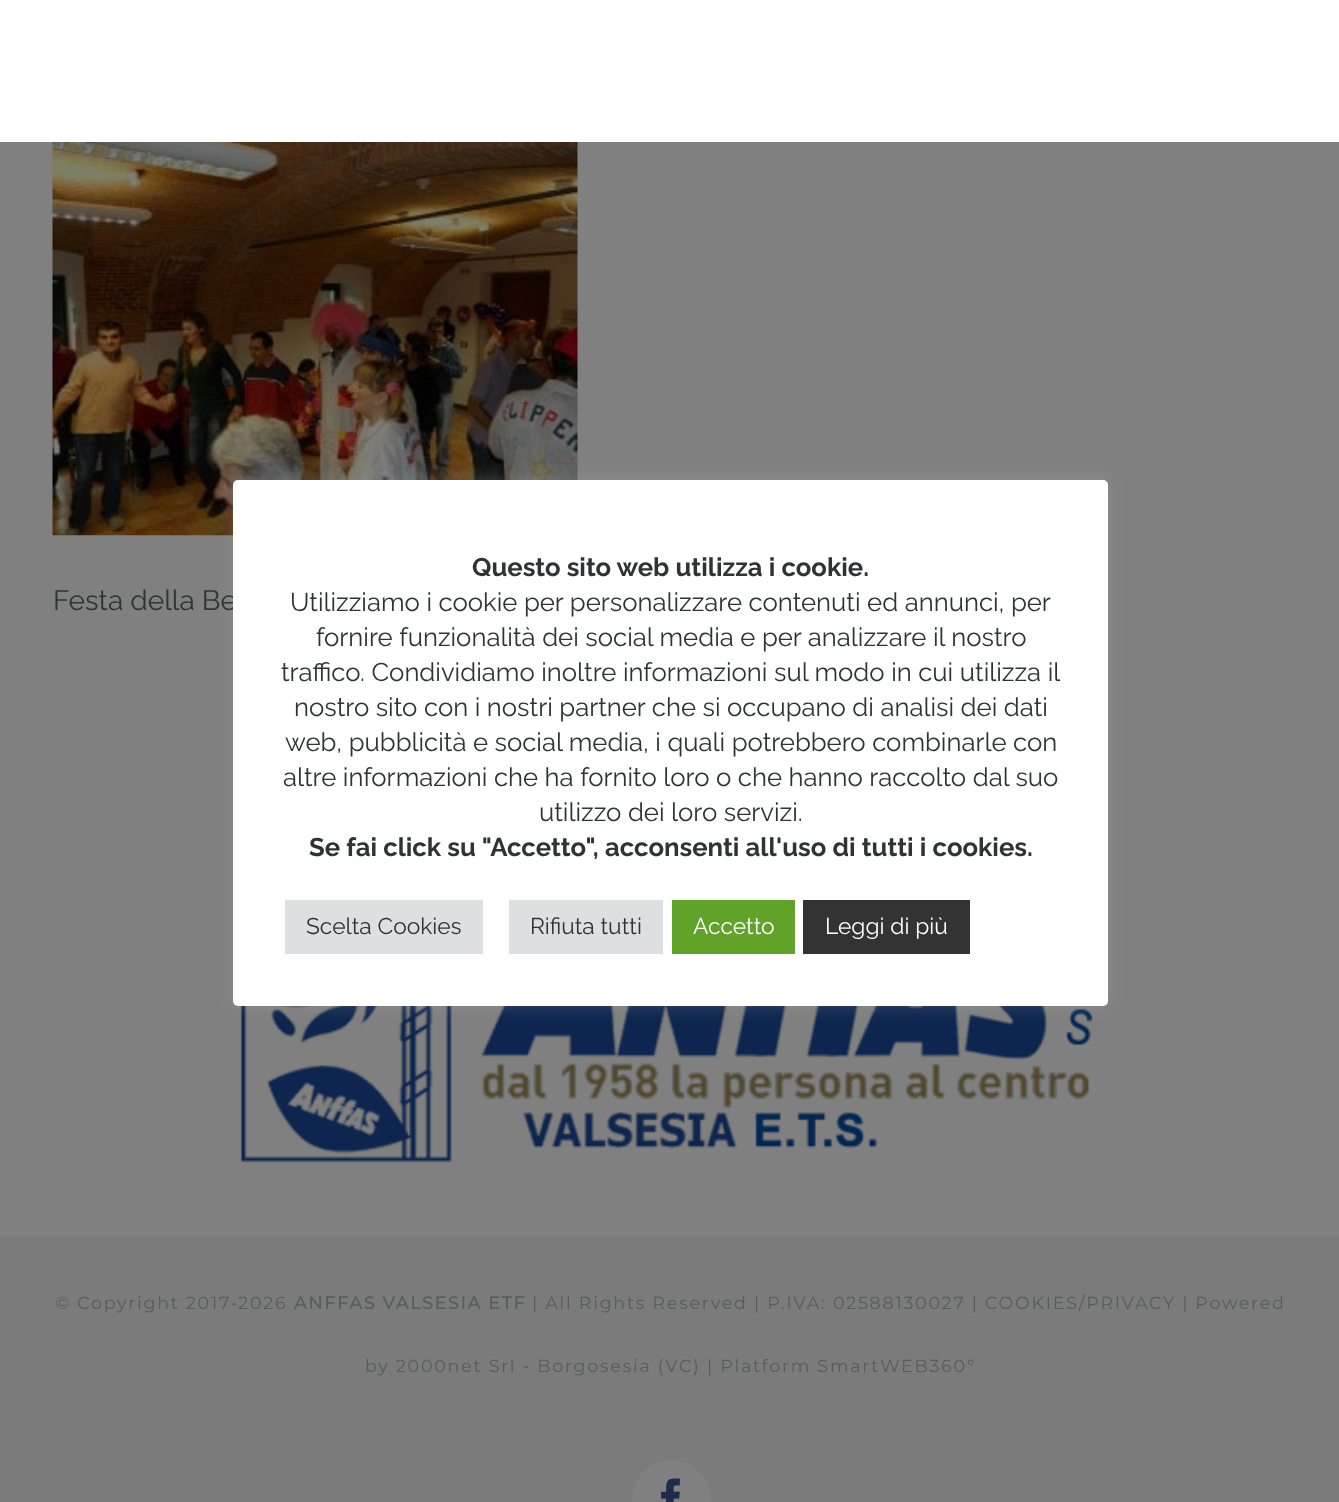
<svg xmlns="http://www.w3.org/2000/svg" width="1339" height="1502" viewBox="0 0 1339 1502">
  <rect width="100%" height="100%" fill="rgb(128,128,128)"/>
  <image x="52" y="142" width="526" height="394" href="pic1.png"/>
  <image x="239" y="1006" width="854" height="157" href="pic2.png"/>
  <rect x="233" y="478" width="875" height="527" rx="5" fill="rgba(172,171,171,0.3)" filter="blur(9px)"/>
  <text x="53" y="610" font-family="Raleway" font-size="28" fill="rgb(46,51,52)">Festa della Be</text>
  <rect x="233" y="480" width="875" height="526" rx="5" fill="rgb(255,255,255)"/>
  <text x="472" y="576" font-family="Raleway" font-size="25.7" font-weight="bold" fill="rgb(46,51,52)">Questo sito web utilizza i cookie.</text>
  <g font-family="Raleway" font-size="25.7" fill="rgb(46,51,52)">
    <text x="290" y="611">Utilizziamo i cookie per personalizzare contenuti ed annunci, per</text>
    <text x="316" y="646">fornire funzionalità dei social media e per analizzare il nostro</text>
    <text x="281" y="681">traffico. Condividiamo inoltre informazioni sul modo in cui utilizza il</text>
    <text x="294" y="716">nostro sito con i nostri partner che si occupano di analisi dei dati</text>
    <text x="285" y="751">web, pubblicità e social media, i quali potrebbero combinarle con</text>
    <text x="283" y="786">altre informazioni che ha fornito loro o che hanno raccolto dal suo</text>
    <text x="539" y="821">utilizzo dei loro servizi.</text>
  </g>
  <text x="309" y="856" font-family="Raleway" font-size="25.7" font-weight="bold" fill="rgb(46,51,52)">Se fai click su "Accetto", acconsenti all'uso di tutti i cookies.</text>
  <rect x="285" y="900" width="198" height="54" fill="rgb(222,223,224)"/>
  <text x="306" y="934" font-family="Raleway" font-size="22.75" fill="rgb(46,51,52)">Scelta Cookies</text>
  <rect x="509" y="900" width="154" height="54" fill="rgb(222,223,224)"/>
  <text x="530" y="934" font-family="Raleway" font-size="22.75" fill="rgb(46,51,52)">Rifiuta tutti</text>
  <rect x="672" y="900" width="123" height="54" fill="rgb(97,162,41)"/>
  <text x="693" y="934" font-family="Raleway" font-size="22.75" fill="rgb(255,255,255)">Accetto</text>
  <rect x="803" y="900" width="167" height="54" fill="rgb(51,51,51)"/>
  <text x="825" y="934" font-family="Raleway" font-size="22.75" fill="rgb(255,255,255)">Leggi di più</text>
  <rect x="0" y="0" width="1339" height="142" fill="rgb(255,255,255)"/>
  <rect x="0" y="1237" width="1339" height="265" fill="rgb(123,123,123)"/>
  <text x="55" y="1309" font-family="Montserrat" font-size="17.5" font-weight="100" letter-spacing="1.75" fill="rgb(89,92,92)">© Copyright 2017-2026</text>
  <text x="294" y="1309" font-family="Montserrat" font-size="17.5" font-weight="bold" letter-spacing="1.75" fill="rgb(89,92,92)">ANFFAS VALSESIA ETF</text>
  <g font-family="Montserrat" font-size="17.5" font-weight="100" letter-spacing="1.75" fill="rgb(89,92,92)">
    <text x="532" y="1309">| All Rights Reserved | P.IVA: 02588130027 | COOKIES/PRIVACY | Powered</text>
    <text x="365" y="1372">by 2000net Srl - Borgosesia (VC) | Platform SmartWEB360°</text>
  </g>
  <rect x="632" y="1460" width="79" height="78" rx="39" fill="rgb(128,128,128)"/>
  <image x="661" y="1478" width="19" height="24" href="pic3.png"/>
</svg>
